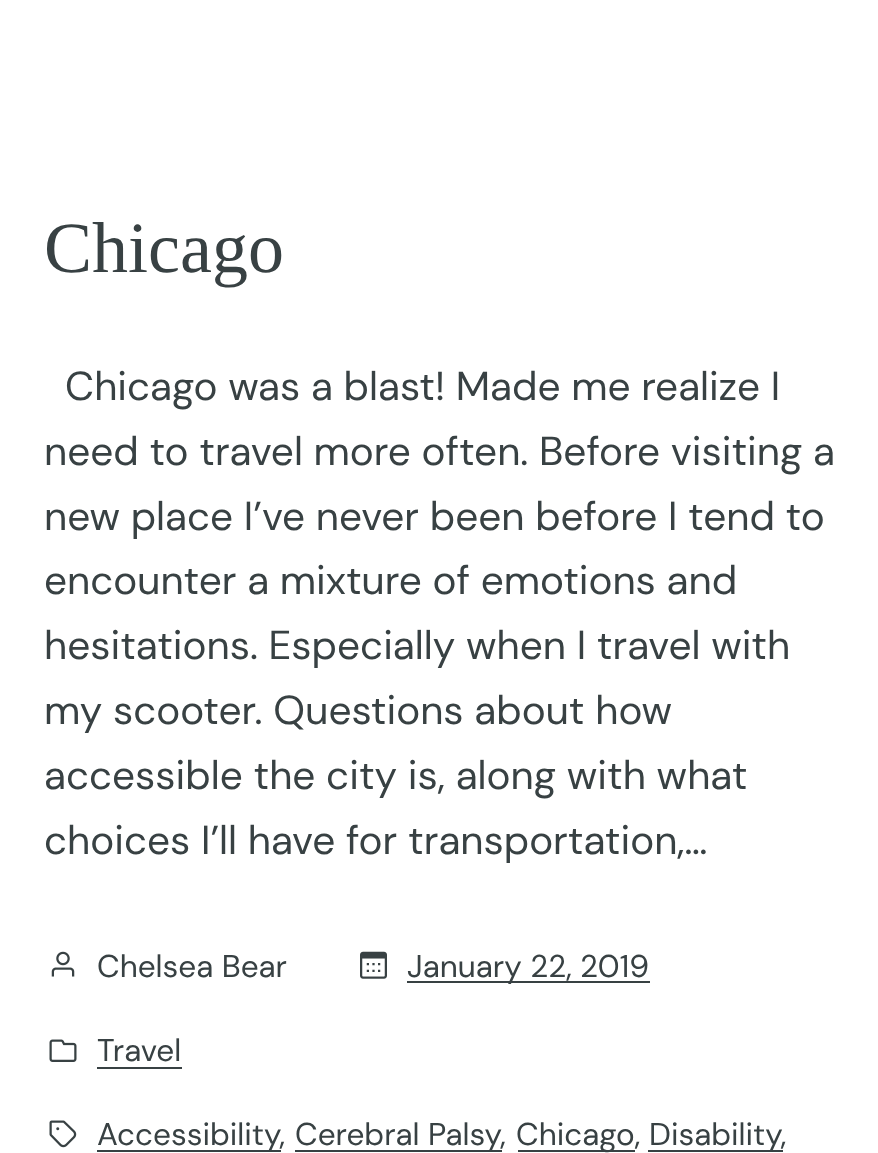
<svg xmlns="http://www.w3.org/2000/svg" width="878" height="1153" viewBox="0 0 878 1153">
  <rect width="100%" height="100%" fill="rgb(255,255,255)"/>
  <text x="44" y="272" font-family="Liberation Serif" font-size="72" fill="rgb(56,65,67)">Chicago</text>
  <g font-family="DM Sans" font-size="40.5" fill="rgb(56,65,67)">
    <text x="65" y="400">Chicago was a blast! Made me realize I</text>
    <text>
      <tspan x="44" y="465">need to travel more often. Before visiting a</tspan>
      <tspan x="44" y="530">new place I’ve never been before I tend to</tspan>
      <tspan x="44" y="594">encounter a mixture of emotions and</tspan>
      <tspan x="44" y="659">hesitations. Especially when I travel with</tspan>
      <tspan x="44" y="724">my scooter. Questions about how</tspan>
      <tspan x="44" y="789">accessible the city is, along with what</tspan>
      <tspan x="44" y="854">choices I’ll have for transportation,…</tspan>
    </text>
  </g>
  <image x="51" y="951" width="24" height="26" href="pic1.png"/>
  <text x="97" y="977" font-family="DM Sans" font-size="31.5" fill="rgb(56,65,67)">Chelsea Bear</text>
  <image x="360" y="951" width="27" height="28" href="pic2.png"/>
  <rect x="407" y="981" width="243" height="2" fill="rgb(56,65,67)"/>
  <text x="407" y="977" font-family="DM Sans" font-size="31.5" fill="rgb(56,65,67)">January 22, 2019</text>
  <image x="49" y="1039" width="28" height="23" href="pic3.png"/>
  <text x="97" y="1061" font-family="DM Sans" font-size="31.5" fill="rgb(56,65,67)">Travel</text>
  <rect x="97" y="1067" width="85" height="2" fill="rgb(56,65,67)"/>
  <image x="49" y="1120" width="28" height="28" href="pic4.png"/>
  <rect x="97" y="1150" width="184" height="2" fill="rgb(56,65,67)"/>
  <text x="97" y="1145" font-family="DM Sans" font-size="31.5" fill="rgb(56,65,67)">Accessibility,</text>
  <rect x="295" y="1150" width="207" height="2" fill="rgb(56,65,67)"/>
  <text x="295" y="1145" font-family="DM Sans" font-size="31.5" fill="rgb(56,65,67)">Cerebral Palsy,</text>
  <rect x="518" y="1150" width="117" height="2" fill="rgb(56,65,67)"/>
  <text x="516" y="1145" font-family="DM Sans" font-size="31.5" fill="rgb(56,65,67)">Chicago,</text>
  <rect x="648" y="1150" width="135" height="2" fill="rgb(56,65,67)"/>
  <text x="649" y="1145" font-family="DM Sans" font-size="31.5" fill="rgb(56,65,67)">Disability,</text>
</svg>
